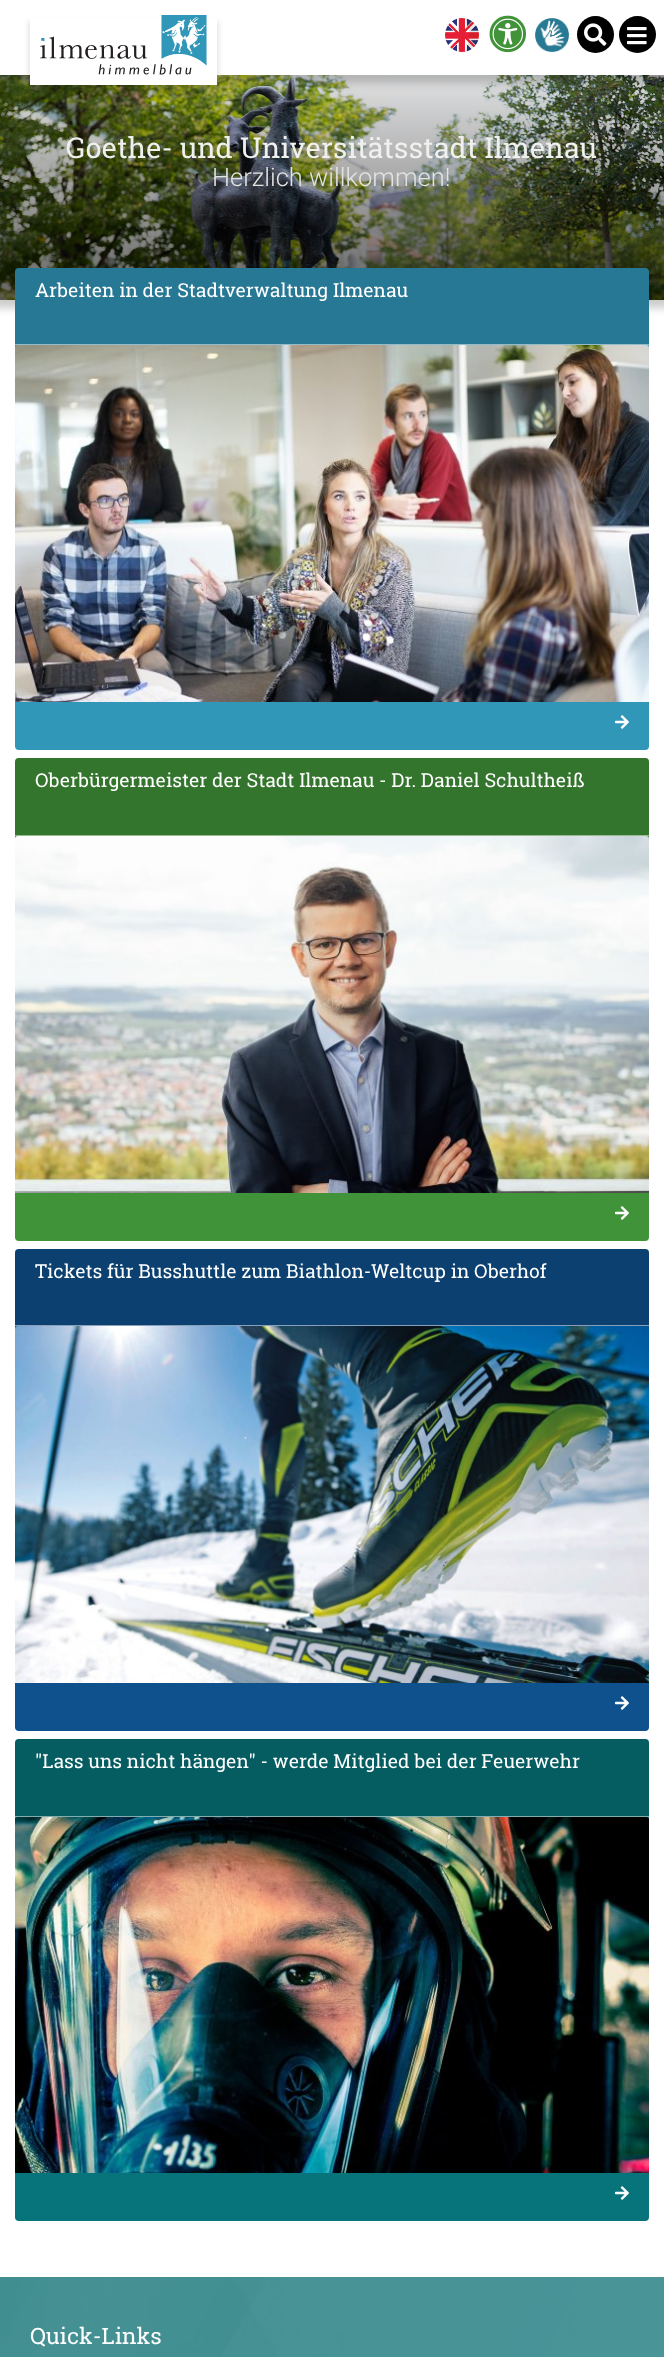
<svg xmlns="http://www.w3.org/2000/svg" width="664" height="2357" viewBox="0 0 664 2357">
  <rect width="100%" height="100%" fill="rgb(255,255,255)"/>
  <rect x="-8" y="67" width="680" height="241" fill="rgba(0,0,0,0.2)" filter="blur(4px)"/>
  <image x="0" y="75" width="664" height="225" href="pic7.png"/>
  <rect x="-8" y="-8" width="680" height="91" fill="rgba(0,0,0,0.2)" filter="blur(4px)"/>
  <rect x="0" y="0" width="664" height="75" fill="rgb(255,255,255)"/>
  <rect x="28" y="21" width="191" height="74" fill="rgba(0,0,0,0.1)" filter="blur(2.5px)"/>
  <rect x="30" y="18" width="187" height="67" fill="rgb(255,255,255)"/>
  <image x="40" y="15" width="167" height="60" href="pic1.png"/>
  <image x="445" y="18" width="34" height="34" href="pic2.png"/>
  <image x="489" y="15" width="37" height="38" href="pic3.png"/>
  <image x="535" y="18" width="34" height="34" href="pic4.png"/>
  <circle cx="595.5" cy="34.5" r="18.5" fill="rgb(0,0,0)"/>
  <image x="584" y="23" width="23" height="23" href="pic5.png"/>
  <circle cx="637.5" cy="34.5" r="18.5" fill="rgb(0,0,0)"/>
  <image x="627" y="27" width="20" height="18" href="pic6.png"/>
  <text x="622" y="141" font-family="Roboto" font-size="24" font-weight="bold" fill="rgb(104,108,102)">×</text>
  <text x="66" y="158" font-family="Roboto Slab" font-size="28.75" fill="rgb(240,241,239)">Goethe- und Universitätsstadt Ilmenau</text>
  <text x="212" y="186" font-family="Roboto" font-size="25.5" font-weight="300" fill="rgb(226,228,225)">Herzlich willkommen!</text>
  <rect x="15" y="268" width="634" height="482" rx="4" fill="rgb(49,151,185)"/>
  <path d="M18 268H646C647.5 268 649 269.5 649 271V345H15V271C15 269.5 16.5 268 18 268Z" fill="rgba(0,0,0,0.2)"/>
  <rect x="15" y="344" width="634" height="1" fill="rgb(147,188,202)"/>
  <text x="35" y="297" font-family="Roboto Slab" font-size="19.2" fill="rgb(255,255,255)">Arbeiten in der Stadtverwaltung Ilmenau</text>
  <image x="15" y="345" width="634" height="357" href="pic8.png"/>
  <image x="615" y="715" width="14" height="14" href="pic9.png"/>
  <rect x="15" y="758" width="634" height="483" rx="4" fill="rgb(65,147,57)"/>
  <path d="M18 758H646C647.5 758 649 759.5 649 761V836H15V761C15 759.5 16.5 758 18 758Z" fill="rgba(0,0,0,0.2)"/>
  <rect x="15" y="835" width="634" height="1" fill="rgb(154,186,150)"/>
  <text x="35" y="787" font-family="Roboto Slab" font-size="19.2" fill="rgb(255,255,255)">Oberbürgermeister der Stadt Ilmenau - Dr. Daniel Schultheiß</text>
  <image x="15" y="836" width="634" height="357" href="pic10.png"/>
  <image x="615" y="1206" width="14" height="14" href="pic11.png"/>
  <rect x="15" y="1249" width="634" height="482" rx="4" fill="rgb(14,81,141)"/>
  <path d="M18 1249H646C647.5 1249 649 1250.5 649 1252V1326H15V1252C15 1250.5 16.5 1249 18 1249Z" fill="rgba(0,0,0,0.2)"/>
  <rect x="15" y="1325" width="634" height="1" fill="rgb(133,160,184)"/>
  <text x="35" y="1278" font-family="Roboto Slab" font-size="19.2" fill="rgb(255,255,255)">Tickets für Busshuttle zum Biathlon-Weltcup in Oberhof</text>
  <image x="15" y="1326" width="634" height="357" href="pic12.png"/>
  <image x="615" y="1696" width="14" height="14" href="pic13.png"/>
  <rect x="15" y="1739" width="634" height="482" rx="4" fill="rgb(7,115,122)"/>
  <path d="M18 1739H646C647.5 1739 649 1740.5 649 1742V1817H15V1742C15 1740.5 16.5 1739 18 1739Z" fill="rgba(0,0,0,0.2)"/>
  <rect x="15" y="1816" width="634" height="1" fill="rgb(130,174,176)"/>
  <text x="35" y="1768" font-family="Roboto Slab" font-size="19.2" fill="rgb(255,255,255)">"Lass uns nicht hängen" - werde Mitglied bei der Feuerwehr</text>
  <image x="15" y="1817" width="634" height="356" href="pic14.png"/>
  <image x="615" y="2186" width="14" height="14" href="pic15.png"/>
  <rect x="0" y="2277" width="664" height="80" fill="rgb(57,143,149)"/>
  <image x="0" y="2277" width="664" height="80" href="pic16.png"/>
  <text x="30" y="2344" font-family="Roboto Slab" font-size="22.5" fill="rgb(255,255,255)">Quick-Links</text>
</svg>
